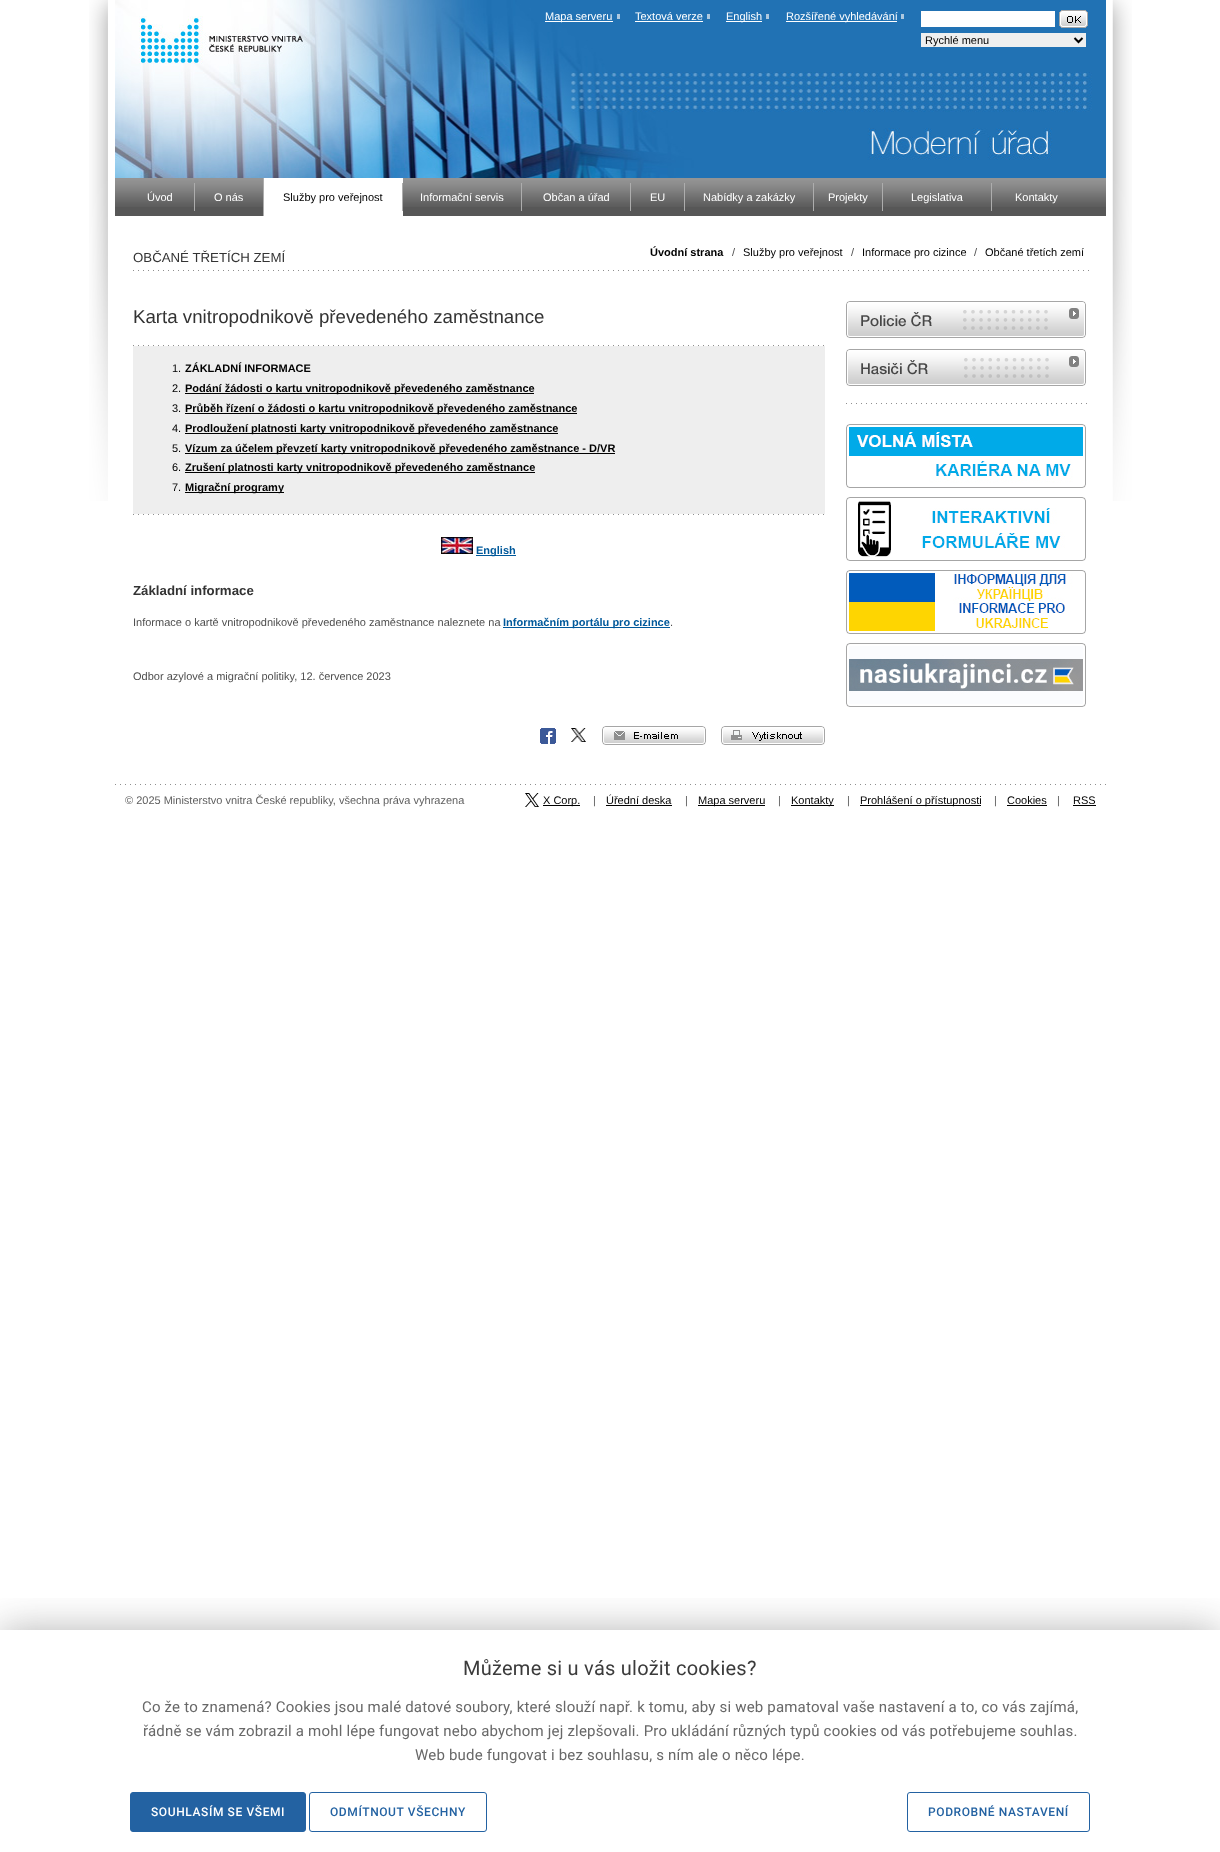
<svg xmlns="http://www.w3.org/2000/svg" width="1220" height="1852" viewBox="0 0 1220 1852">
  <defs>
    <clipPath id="clip1"><rect x="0" y="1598" width="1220" height="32"/></clipPath>
  </defs>
  <rect width="100%" height="100%" fill="rgb(255,255,255)"/>
  <image x="89" y="0" width="1043" height="501" href="pic1.png"/>
  <rect x="1092" y="0" width="14" height="178" fill="rgb(33,114,180)"/>
  <image x="115" y="0" width="977" height="178" href="pic2.png"/>
  <image x="139" y="16" width="180" height="66" href="pic3.png"/>
  <rect x="545" y="21" width="68" height="1" fill="rgb(255,255,255)"/>
  <text x="545" y="20" font-family="Liberation Sans" font-size="11" fill="rgb(255,255,255)">Mapa serveru</text>
  <rect x="617" y="14" width="3" height="5" fill="rgb(173,200,223)"/>
  <text x="635" y="20" font-family="Liberation Sans" font-size="11" fill="rgb(255,255,255)">Textová verze</text>
  <rect x="707" y="14" width="3" height="5" fill="rgb(173,200,223)"/>
  <rect x="635" y="21" width="68" height="1" fill="rgb(255,255,255)"/>
  <rect x="726" y="21" width="36" height="1" fill="rgb(255,255,255)"/>
  <text x="726" y="20" font-family="Liberation Sans" font-size="11" fill="rgb(255,255,255)">English</text>
  <rect x="766" y="14" width="3" height="5" fill="rgb(173,200,223)"/>
  <rect x="786" y="21" width="111" height="1" fill="rgb(255,255,255)"/>
  <text x="786" y="20" font-family="Liberation Sans" font-size="11" fill="rgb(255,255,255)">Rozšířené vyhledávání</text>
  <rect x="901" y="14" width="3" height="5" fill="rgb(173,200,223)"/>
  <rect x="921" y="11" width="134" height="16" fill="rgb(255,255,255)"/>
  <image x="1059" y="10" width="29" height="18" href="pic4.png"/>
  <rect x="921" y="33" width="165" height="14" fill="rgb(239,239,239)"/>
  <path d="M1074.5 38L1078.5 42L1082.5 38" fill="none" stroke="rgb(0,0,0)" stroke-width="2"/>
  <text x="925" y="44" font-family="Liberation Sans" font-size="11" fill="rgb(0,0,0)">Rychlé menu</text>
  <rect x="115" y="207" width="991" height="9" fill="rgb(87,87,87)"/>
  <image x="115" y="178" width="991" height="29" href="pic5.png"/>
  <text x="147" y="201" font-family="Liberation Sans" font-size="11" fill="rgb(255,255,255)">Úvod</text>
  <rect x="194" y="183" width="1" height="28" fill="rgb(173,173,173)"/>
  <text x="214" y="201" font-family="Liberation Sans" font-size="11" fill="rgb(255,255,255)">O nás</text>
  <rect x="264" y="178" width="139" height="38" fill="rgb(255,255,255)"/>
  <rect x="263" y="178" width="1" height="38" fill="rgb(173,173,173)"/>
  <text x="283" y="201" font-family="Liberation Sans" font-size="11" fill="rgb(0,0,0)">Služby pro veřejnost</text>
  <rect x="402" y="183" width="1" height="28" fill="rgb(173,173,173)"/>
  <text x="420" y="201" font-family="Liberation Sans" font-size="11" fill="rgb(255,255,255)">Informační servis</text>
  <rect x="521" y="183" width="1" height="28" fill="rgb(173,173,173)"/>
  <text x="543" y="201" font-family="Liberation Sans" font-size="11" fill="rgb(255,255,255)">Občan a úřad</text>
  <rect x="630" y="183" width="1" height="28" fill="rgb(173,173,173)"/>
  <text x="650" y="201" font-family="Liberation Sans" font-size="11" fill="rgb(255,255,255)">EU</text>
  <rect x="684" y="183" width="1" height="28" fill="rgb(173,173,173)"/>
  <text x="703" y="201" font-family="Liberation Sans" font-size="11" fill="rgb(255,255,255)">Nabídky a zakázky</text>
  <rect x="813" y="183" width="1" height="28" fill="rgb(173,173,173)"/>
  <text x="828" y="201" font-family="Liberation Sans" font-size="11" fill="rgb(255,255,255)">Projekty</text>
  <rect x="882" y="183" width="1" height="28" fill="rgb(173,173,173)"/>
  <text x="911" y="201" font-family="Liberation Sans" font-size="11" fill="rgb(255,255,255)">Legislativa</text>
  <rect x="991" y="183" width="1" height="28" fill="rgb(173,173,173)"/>
  <text x="1015" y="201" font-family="Liberation Sans" font-size="11" fill="rgb(255,255,255)">Kontakty</text>
  <image x="133" y="270" width="956" height="1" href="pic6.png"/>
  <text x="133" y="262" font-family="Liberation Sans" font-size="13.25" fill="rgb(51,51,51)">OBČANÉ TŘETÍCH ZEMÍ</text>
  <text x="650" y="256" font-family="Liberation Sans" font-size="11" font-weight="bold" fill="rgb(0,0,0)">Úvodní strana</text>
  <text x="732" y="256" font-family="Liberation Sans" font-size="11" fill="rgb(79,79,79)">/</text>
  <text x="743" y="256" font-family="Liberation Sans" font-size="11" fill="rgb(0,0,0)">Služby pro veřejnost</text>
  <text x="851" y="256" font-family="Liberation Sans" font-size="11" fill="rgb(79,79,79)">/</text>
  <text x="862" y="256" font-family="Liberation Sans" font-size="11" fill="rgb(0,0,0)">Informace pro cizince</text>
  <text x="974" y="256" font-family="Liberation Sans" font-size="11" fill="rgb(79,79,79)">/</text>
  <text x="985" y="256" font-family="Liberation Sans" font-size="11" fill="rgb(0,0,0)">Občané třetích zemí</text>
  <text x="133" y="323" font-family="Liberation Sans" font-size="18.7" fill="rgb(51,51,51)">Karta vnitropodnikově převedeného zaměstnance</text>
  <rect x="133" y="346" width="692" height="168" fill="rgb(238,238,238)"/>
  <image x="133" y="345" width="692" height="1" href="pic7.png"/>
  <image x="133" y="514" width="692" height="1" href="pic7.png"/>
  <text x="172" y="372" font-family="Liberation Sans" font-size="11" fill="rgb(0,0,0)">1.</text>
  <text x="185" y="372" font-family="Liberation Sans" font-size="11" font-weight="bold" fill="rgb(0,0,0)">ZÁKLADNÍ INFORMACE</text>
  <text x="172" y="392" font-family="Liberation Sans" font-size="11" fill="rgb(0,0,0)">2.</text>
  <rect x="185" y="393" width="349" height="1" fill="rgb(0,0,0)"/>
  <text x="185" y="392" font-family="Liberation Sans" font-size="11" font-weight="bold" fill="rgb(0,0,0)">Podání žádosti o kartu vnitropodnikově převedeného zaměstnance</text>
  <text x="172" y="412" font-family="Liberation Sans" font-size="11" fill="rgb(0,0,0)">3.</text>
  <rect x="185" y="413" width="392" height="1" fill="rgb(0,0,0)"/>
  <text x="185" y="412" font-family="Liberation Sans" font-size="11" font-weight="bold" fill="rgb(0,0,0)">Průběh řízení o žádosti o kartu vnitropodnikově převedeného zaměstnance</text>
  <text x="172" y="432" font-family="Liberation Sans" font-size="11" fill="rgb(0,0,0)">4.</text>
  <rect x="185" y="433" width="373" height="1" fill="rgb(0,0,0)"/>
  <text x="185" y="432" font-family="Liberation Sans" font-size="11" font-weight="bold" fill="rgb(0,0,0)">Prodloužení platnosti karty vnitropodnikově převedeného zaměstnance</text>
  <text x="172" y="452" font-family="Liberation Sans" font-size="11" fill="rgb(0,0,0)">5.</text>
  <rect x="185" y="453" width="430" height="1" fill="rgb(0,0,0)"/>
  <text x="185" y="452" font-family="Liberation Sans" font-size="11" font-weight="bold" fill="rgb(0,0,0)">Vízum za účelem převzetí karty vnitropodnikově převedeného zaměstnance - D/VR</text>
  <text x="172" y="471" font-family="Liberation Sans" font-size="11" fill="rgb(0,0,0)">6.</text>
  <rect x="185" y="472" width="350" height="1" fill="rgb(0,0,0)"/>
  <text x="185" y="471" font-family="Liberation Sans" font-size="11" font-weight="bold" fill="rgb(0,0,0)">Zrušení platnosti karty vnitropodnikově převedeného zaměstnance</text>
  <text x="172" y="491" font-family="Liberation Sans" font-size="11" fill="rgb(0,0,0)">7.</text>
  <rect x="185" y="492" width="99" height="1" fill="rgb(0,0,0)"/>
  <text x="185" y="491" font-family="Liberation Sans" font-size="11" font-weight="bold" fill="rgb(0,0,0)">Migrační programy</text>
  <image x="441" y="537" width="32" height="17" href="pic8.png"/>
  <rect x="476" y="555" width="40" height="1" fill="rgb(0,89,155)"/>
  <text x="476" y="554" font-family="Liberation Sans" font-size="11" font-weight="bold" fill="rgb(0,89,155)">English</text>
  <text x="133" y="595" font-family="Liberation Sans" font-size="13.25" font-weight="bold" fill="rgb(51,51,51)">Základní informace</text>
  <text x="133" y="626" font-family="Liberation Sans" font-size="11" fill="rgb(79,79,79)">Informace o kartě vnitropodnikově převedeného zaměstnance naleznete na</text>
  <rect x="503" y="627" width="167" height="1" fill="rgb(0,89,155)"/>
  <text x="503" y="626" font-family="Liberation Sans" font-size="11" font-weight="bold" fill="rgb(0,89,155)">Informačním portálu pro cizince</text>
  <g font-family="Liberation Sans" font-size="11" fill="rgb(79,79,79)">
    <text x="670" y="626">.</text>
    <text x="133" y="680">Odbor azylové a migrační politiky, 12. července 2023</text>
  </g>
  <image x="540" y="728" width="16" height="16" href="pic9.png"/>
  <image x="571" y="728" width="15" height="14" href="pic10.png"/>
  <image x="602" y="726" width="104" height="19" href="pic11.png"/>
  <image x="721" y="726" width="104" height="19" href="pic12.png"/>
  <image x="846" y="403" width="241" height="1" href="pic13.png"/>
  <image x="846" y="301" width="240" height="37" href="pic14.png"/>
  <image x="846" y="349" width="240" height="37" href="pic15.png"/>
  <image x="846" y="424" width="240" height="64" href="pic16.png"/>
  <image x="846" y="497" width="240" height="64" href="pic17.png"/>
  <image x="846" y="570" width="240" height="64" href="pic18.png"/>
  <image x="846" y="643" width="240" height="64" href="pic19.png"/>
  <image x="115" y="784" width="991" height="1" href="pic20.png"/>
  <text x="125" y="804" font-family="Liberation Sans" font-size="11" fill="rgb(95,95,95)">© 2025 Ministerstvo vnitra České republiky, všechna práva vyhrazena</text>
  <image x="525" y="793" width="14" height="14" href="pic21.png"/>
  <rect x="543" y="805" width="37" height="1" fill="rgb(0,0,0)"/>
  <text x="543" y="804" font-family="Liberation Sans" font-size="11" fill="rgb(0,0,0)">X Corp.</text>
  <text x="593" y="804" font-family="Liberation Sans" font-size="11" fill="rgb(95,95,95)">|</text>
  <text x="606" y="804" font-family="Liberation Sans" font-size="11" fill="rgb(0,0,0)">Úřední deska</text>
  <rect x="606" y="805" width="66" height="1" fill="rgb(0,0,0)"/>
  <text x="685" y="804" font-family="Liberation Sans" font-size="11" fill="rgb(95,95,95)">|</text>
  <rect x="698" y="805" width="67" height="1" fill="rgb(0,0,0)"/>
  <text x="698" y="804" font-family="Liberation Sans" font-size="11" fill="rgb(0,0,0)">Mapa serveru</text>
  <text x="778" y="804" font-family="Liberation Sans" font-size="11" fill="rgb(95,95,95)">|</text>
  <rect x="791" y="805" width="43" height="1" fill="rgb(0,0,0)"/>
  <text x="791" y="804" font-family="Liberation Sans" font-size="11" fill="rgb(0,0,0)">Kontakty</text>
  <text x="847" y="804" font-family="Liberation Sans" font-size="11" fill="rgb(95,95,95)">|</text>
  <rect x="860" y="805" width="121" height="1" fill="rgb(0,0,0)"/>
  <text x="860" y="804" font-family="Liberation Sans" font-size="11" fill="rgb(0,0,0)">Prohlášení o přístupnosti</text>
  <text x="994" y="804" font-family="Liberation Sans" font-size="11" fill="rgb(95,95,95)">|</text>
  <text x="1007" y="804" font-family="Liberation Sans" font-size="11" fill="rgb(0,0,0)">Cookies</text>
  <rect x="1007" y="805" width="40" height="1" fill="rgb(0,0,0)"/>
  <text x="1057" y="804" font-family="Liberation Sans" font-size="11" fill="rgb(95,95,95)">|</text>
  <text x="1073" y="804" font-family="Liberation Sans" font-size="11" fill="rgb(0,0,0)">RSS</text>
  <rect x="1073" y="805" width="23" height="1" fill="rgb(0,0,0)"/>
  <g clip-path="url(#clip1)">
    <rect x="0" y="1631" width="1220" height="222" fill="rgba(59,59,59,0.4)" filter="blur(20px)"/>
  </g>
  <text x="463" y="1675" font-family="Roboto" font-size="20" letter-spacing="0.25" fill="rgb(59,59,59)">Můžeme si u vás uložit cookies?</text>
  <g font-family="Roboto" font-size="15" letter-spacing="0.19" fill="rgb(104,104,104)">
    <text x="142" y="1712">Co že to znamená? Cookies jsou malé datové soubory, které slouží např. k tomu, aby si web pamatoval vaše nastavení a to, co vás zajímá,</text>
    <text x="143" y="1736">řádně se vám zobrazil a mohl lépe fungovat nebo abychom jej zlepšovali. Pro ukládání různých typů cookies od vás potřebujeme souhlas.</text>
    <text x="415" y="1760">Web bude fungovat i bez souhlasu, s ním ale o něco lépe.</text>
  </g>
  <rect x="130.5" y="1792.5" width="175" height="39" rx="2.5" fill="rgb(35,98,162)" stroke="rgb(35,98,162)"/>
  <text x="151" y="1816" font-family="Roboto" font-size="12" font-weight="500" letter-spacing="0.6" fill="rgb(255,255,255)">SOUHLASÍM SE VŠEMI</text>
  <rect x="309.5" y="1792.5" width="177" height="39" rx="2.5" fill="none" stroke="rgb(35,98,162)"/>
  <text x="330" y="1816" font-family="Roboto" font-size="12" font-weight="500" letter-spacing="0.6" fill="rgb(35,98,162)">ODMÍTNOUT VŠECHNY</text>
  <rect x="907.5" y="1792.5" width="182" height="39" rx="2.5" fill="none" stroke="rgb(35,98,162)"/>
  <text x="928" y="1816" font-family="Roboto" font-size="12" font-weight="500" letter-spacing="0.6" fill="rgb(35,98,162)">PODROBNÉ NASTAVENÍ</text>
</svg>
